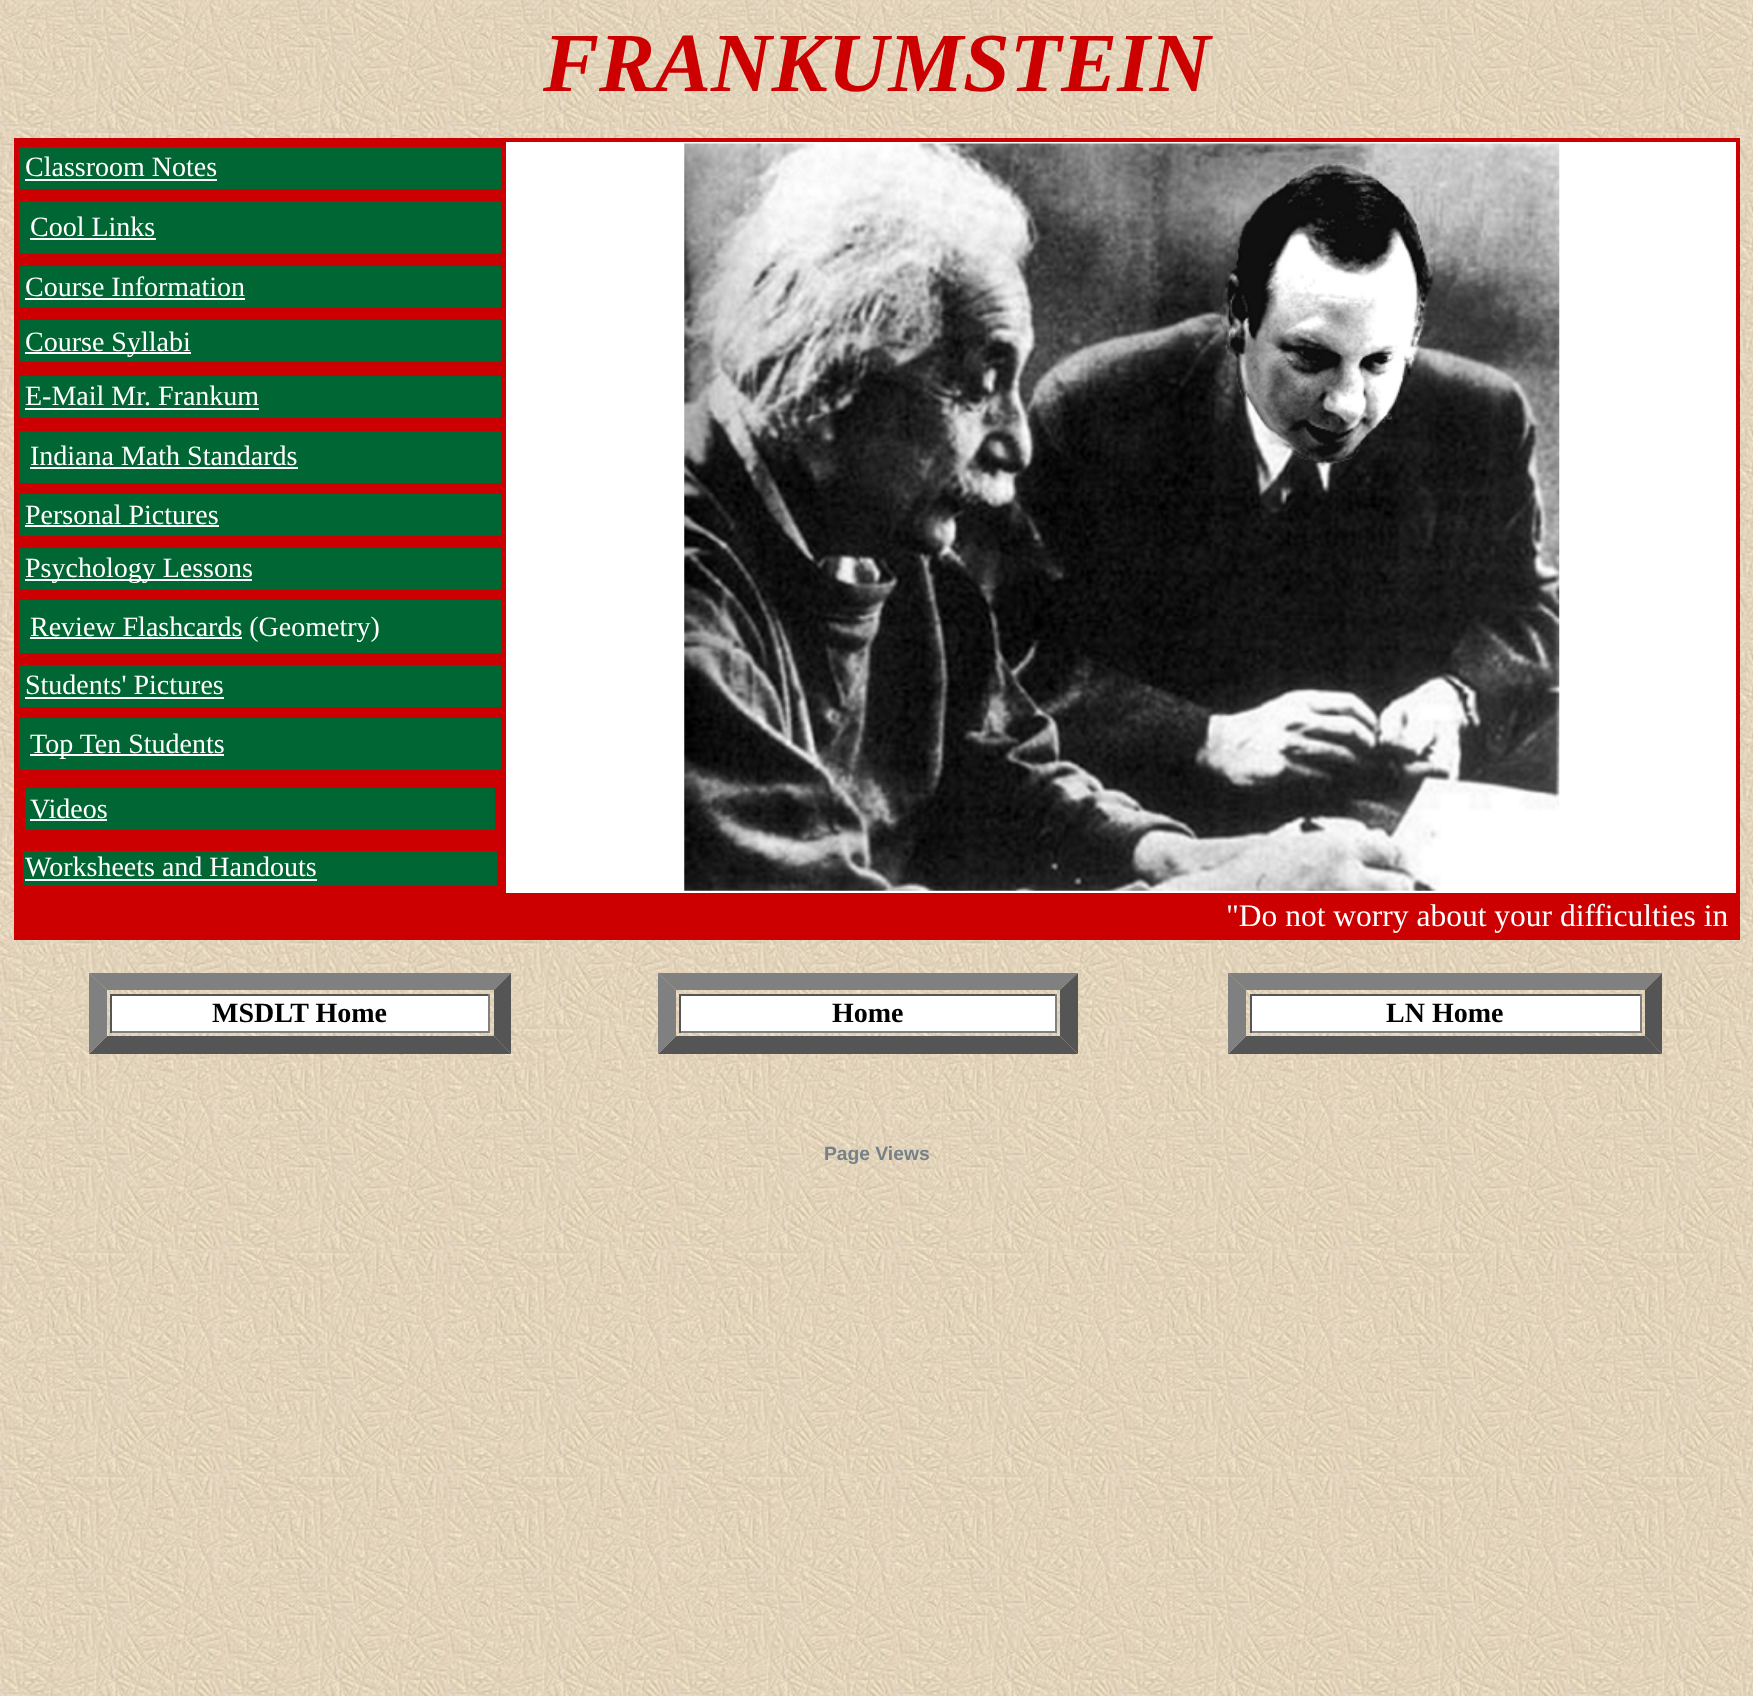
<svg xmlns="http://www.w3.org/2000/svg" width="1753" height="1696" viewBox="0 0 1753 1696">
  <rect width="100%" height="100%" fill="rgb(255,255,255)"/>
  <image x="0" y="0" width="1753" height="1696" href="pic1.png"/>
  <text x="543" y="91" font-family="Liberation Serif" font-size="84" font-weight="bold" font-style="italic" fill="rgb(204,0,0)">FRANKUMSTEIN</text>
  <rect x="14" y="138" width="1726" height="802" fill="rgb(204,0,0)"/>
  <rect x="19" y="147" width="482" height="42" fill="rgb(0,102,51)"/>
  <text x="25" y="176" font-family="Liberation Serif" font-size="28" fill="rgb(255,255,255)">Classroom Notes</text>
  <rect x="25" y="179" width="192" height="2" fill="rgb(255,255,255)"/>
  <rect x="506" y="142" width="1230" height="751" fill="rgb(255,255,255)"/>
  <image x="684" y="143" width="876" height="748" href="pic2.png"/>
  <rect x="19" y="201" width="482" height="53" fill="rgb(0,102,51)"/>
  <text x="30" y="236" font-family="Liberation Serif" font-size="28" fill="rgb(255,255,255)">Cool Links</text>
  <rect x="30" y="238" width="126" height="2" fill="rgb(255,255,255)"/>
  <rect x="19" y="266" width="482" height="42" fill="rgb(0,102,51)"/>
  <text x="25" y="296" font-family="Liberation Serif" font-size="28" fill="rgb(255,255,255)">Course Information</text>
  <rect x="25" y="298" width="220" height="2" fill="rgb(255,255,255)"/>
  <rect x="19" y="320" width="482" height="42" fill="rgb(0,102,51)"/>
  <rect x="25" y="352" width="166" height="2" fill="rgb(255,255,255)"/>
  <text x="25" y="351" font-family="Liberation Serif" font-size="28" fill="rgb(255,255,255)">Course Syllabi</text>
  <rect x="19" y="376" width="482" height="42" fill="rgb(0,102,51)"/>
  <text x="25" y="405" font-family="Liberation Serif" font-size="28" fill="rgb(255,255,255)">E-Mail Mr. Frankum</text>
  <rect x="25" y="408" width="234" height="2" fill="rgb(255,255,255)"/>
  <rect x="19" y="431" width="482" height="52" fill="rgb(0,102,51)"/>
  <text x="30" y="465" font-family="Liberation Serif" font-size="28" fill="rgb(255,255,255)">Indiana Math Standards</text>
  <rect x="30" y="467" width="268" height="2" fill="rgb(255,255,255)"/>
  <rect x="19" y="494" width="482" height="42" fill="rgb(0,102,51)"/>
  <text x="25" y="524" font-family="Liberation Serif" font-size="28" fill="rgb(255,255,255)">Personal Pictures</text>
  <rect x="25" y="525" width="194" height="2" fill="rgb(255,255,255)"/>
  <rect x="19" y="548" width="482" height="42" fill="rgb(0,102,51)"/>
  <rect x="25" y="579" width="227" height="2" fill="rgb(255,255,255)"/>
  <text x="25" y="577" font-family="Liberation Serif" font-size="28" fill="rgb(255,255,255)">Psychology Lessons</text>
  <rect x="19" y="600" width="482" height="53" fill="rgb(0,102,51)"/>
  <rect x="30" y="637" width="212" height="2" fill="rgb(255,255,255)"/>
  <text x="30" y="636" font-family="Liberation Serif" font-size="28" fill="rgb(255,255,255)">Review Flashcards (Geometry)</text>
  <rect x="19" y="665" width="482" height="42" fill="rgb(0,102,51)"/>
  <text x="25" y="694" font-family="Liberation Serif" font-size="28" fill="rgb(255,255,255)">Students' Pictures</text>
  <rect x="25" y="697" width="199" height="2" fill="rgb(255,255,255)"/>
  <rect x="19" y="718" width="482" height="52" fill="rgb(0,102,51)"/>
  <rect x="30" y="754" width="194" height="2" fill="rgb(255,255,255)"/>
  <text x="30" y="753" font-family="Liberation Serif" font-size="28" fill="rgb(255,255,255)">Top Ten Students</text>
  <rect x="25" y="788" width="470" height="42" fill="rgb(0,102,51)"/>
  <text x="30" y="818" font-family="Liberation Serif" font-size="28" fill="rgb(255,255,255)">Videos</text>
  <rect x="30" y="819" width="77" height="2" fill="rgb(255,255,255)"/>
  <rect x="23" y="851" width="474" height="35" fill="rgb(0,102,51)"/>
  <text x="25" y="876" font-family="Liberation Serif" font-size="28" fill="rgb(255,255,255)">Worksheets and Handouts</text>
  <rect x="25" y="879" width="292" height="2" fill="rgb(255,255,255)"/>
  <text x="1226" y="926" font-family="Liberation Serif" font-size="31.5" fill="rgb(255,255,255)">"Do not worry about your difficulties in</text>
  <path d="M89 973H511L494 990H107Z" fill="rgb(128,128,128)"/>
  <path d="M511 973V1054L494 1036V990Z" fill="rgb(85,85,85)"/>
  <path d="M511 1054H89L107 1036H494Z" fill="rgb(85,85,85)"/>
  <path d="M89 1054V973L107 990V1036Z" fill="rgb(128,128,128)"/>
  <rect x="112" y="996" width="376" height="35" fill="rgb(255,255,255)"/>
  <rect x="110" y="994" width="380" height="2" fill="rgb(85,85,85)"/>
  <rect x="488" y="994" width="2" height="39" fill="rgb(128,128,128)"/>
  <rect x="110" y="1031" width="380" height="2" fill="rgb(128,128,128)"/>
  <rect x="110" y="994" width="2" height="39" fill="rgb(85,85,85)"/>
  <text x="212" y="1022" font-family="Liberation Serif" font-size="28" font-weight="bold" fill="rgb(0,0,0)">MSDLT Home</text>
  <path d="M658 973H1078L1060 990H676Z" fill="rgb(128,128,128)"/>
  <path d="M1078 973V1054L1060 1036V990Z" fill="rgb(85,85,85)"/>
  <path d="M1078 1054H658L676 1036H1060Z" fill="rgb(85,85,85)"/>
  <path d="M658 1054V973L676 990V1036Z" fill="rgb(128,128,128)"/>
  <rect x="681" y="996" width="374" height="35" fill="rgb(255,255,255)"/>
  <rect x="679" y="994" width="378" height="2" fill="rgb(85,85,85)"/>
  <rect x="1055" y="994" width="2" height="39" fill="rgb(128,128,128)"/>
  <rect x="679" y="1031" width="378" height="2" fill="rgb(128,128,128)"/>
  <rect x="679" y="994" width="2" height="39" fill="rgb(85,85,85)"/>
  <text x="832" y="1022" font-family="Liberation Serif" font-size="28" font-weight="bold" fill="rgb(0,0,0)">Home</text>
  <path d="M1228 973H1662L1645 990H1246Z" fill="rgb(128,128,128)"/>
  <path d="M1662 973V1054L1645 1036V990Z" fill="rgb(85,85,85)"/>
  <path d="M1662 1054H1228L1246 1036H1645Z" fill="rgb(85,85,85)"/>
  <path d="M1228 1054V973L1246 990V1036Z" fill="rgb(128,128,128)"/>
  <rect x="1252" y="996" width="388" height="35" fill="rgb(255,255,255)"/>
  <rect x="1250" y="994" width="392" height="2" fill="rgb(85,85,85)"/>
  <rect x="1640" y="994" width="2" height="39" fill="rgb(128,128,128)"/>
  <rect x="1250" y="1031" width="392" height="2" fill="rgb(128,128,128)"/>
  <rect x="1250" y="994" width="2" height="39" fill="rgb(85,85,85)"/>
  <text x="1386" y="1022" font-family="Liberation Serif" font-size="28" font-weight="bold" fill="rgb(0,0,0)">LN Home</text>
  <text x="824" y="1160" font-family="Liberation Sans" font-size="19.25" font-weight="bold" fill="rgb(117,128,135)">Page Views</text>
</svg>
